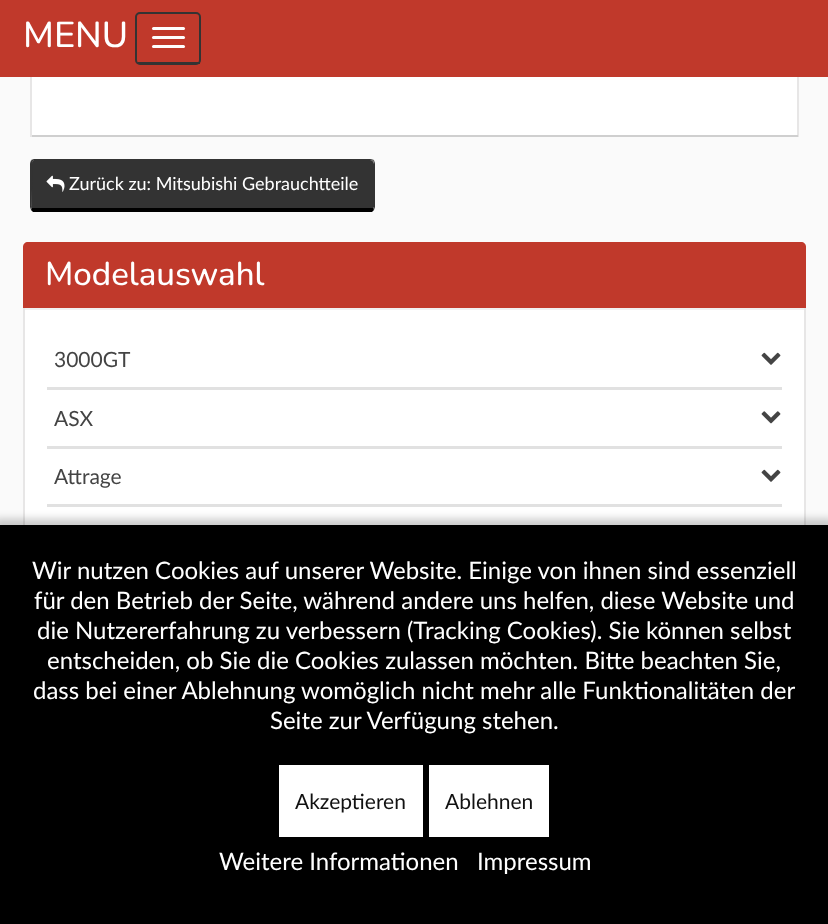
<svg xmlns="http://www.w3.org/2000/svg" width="828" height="924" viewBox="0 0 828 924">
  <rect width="100%" height="100%" fill="rgb(250,250,250)"/>
  <rect x="0" y="0" width="828" height="77" fill="rgb(192,57,43)"/>
  <text x="23" y="47" font-family="Nunito" font-size="36" font-weight="500" fill="rgb(255,255,255)">MENU</text>
  <rect x="136" y="13" width="64" height="51" rx="4" fill="none" stroke="rgb(51,51,51)" stroke-width="2"/>
  <rect x="138" y="62" width="62" height="2" fill="rgb(51,51,51)"/>
  <rect x="152" y="27" width="33" height="3" rx="1.5" fill="rgb(255,255,255)"/>
  <rect x="152" y="36" width="33" height="3" rx="1.5" fill="rgb(255,255,255)"/>
  <rect x="152" y="45" width="33" height="3" rx="1.5" fill="rgb(255,255,255)"/>
  <rect x="32" y="77" width="765" height="58" fill="rgb(255,255,255)"/>
  <rect x="797" y="77" width="2" height="60" fill="rgb(231,230,230)"/>
  <rect x="30" y="135" width="768" height="2" fill="rgb(207,207,207)"/>
  <rect x="30" y="77" width="2" height="60" fill="rgb(231,230,230)"/>
  <path d="M34 160H370C372 160 374 162 374 164V207C374 208 372 208 370 208H34C33 208 32 208 32 207V164C32 162 33 160 34 160Z" fill="rgb(51,51,51)"/>
  <path d="M34 159L31 160L33 162C33 161 33 160 34 160H370C371 160 372 160 373 161L374 160C373 160 372 159 370 159Z" fill="rgb(51,51,51)"/>
  <path d="M375 207V164C375 162 374 161 374 160L373 161C374 162 374 163 374 164V207L373 208L374 210Z" fill="rgb(51,51,51)"/>
  <path d="M33 212L31 210L32 207L33 208H373L374 210L372 212Z" fill="rgb(0,0,0)"/>
  <path d="M30 164V207L31 210L32 207C32 206 32 164 33 162L31 160C31 161 30 162 30 164Z" fill="rgb(51,51,51)"/>
  <image x="46" y="175" width="19" height="17" href="pic1.png"/>
  <text x="69" y="190" font-family="Lato" font-size="18" fill="rgb(255,255,255)">Zurück zu: Mitsubishi Gebrauchtteile</text>
  <path d="M28 242H801C804 242 806 244 806 247V308H23V247C23 244 25 242 28 242Z" fill="rgb(192,57,43)"/>
  <text x="45" y="285" font-family="Nunito" font-size="33" font-weight="500" fill="rgb(255,255,255)">Modelauswahl</text>
  <rect x="25" y="310" width="779" height="215" fill="rgb(255,255,255)"/>
  <rect x="23" y="308" width="783" height="2" fill="rgb(241,241,241)"/>
  <rect x="804" y="308" width="2" height="217" fill="rgb(231,230,230)"/>
  <rect x="23" y="308" width="2" height="217" fill="rgb(231,230,230)"/>
  <rect x="47" y="387" width="735" height="3" fill="rgb(225,225,225)"/>
  <text x="54" y="367" font-family="Lato" font-size="21" fill="rgb(68,68,68)">3000GT</text>
  <image x="761" y="352" width="20" height="13" href="pic2.png"/>
  <rect x="47" y="446" width="735" height="3" fill="rgb(225,225,225)"/>
  <text x="54" y="426" font-family="Lato" font-size="21" fill="rgb(68,68,68)">ASX</text>
  <image x="761" y="411" width="20" height="13" href="pic3.png"/>
  <rect x="47" y="504" width="735" height="3" fill="rgb(225,225,225)"/>
  <text x="54" y="484" font-family="Lato" font-size="21" fill="rgb(68,68,68)">Attrage</text>
  <image x="761" y="469" width="20" height="13" href="pic2.png"/>
  <rect x="-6" y="519" width="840" height="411" fill="rgba(0,0,0,0.21)" filter="blur(4px)"/>
  <rect x="0" y="525" width="828" height="399" fill="rgb(0,0,0)"/>
  <g font-family="Lato" font-size="24" fill="rgb(255,255,255)">
    <text x="32" y="579">Wir nutzen Cookies auf unserer Website. Einige von ihnen sind essenziell</text>
    <text x="34" y="609">für den Betrieb der Seite, während andere uns helfen, diese Website und</text>
    <text x="37" y="639">die Nutzererfahrung zu verbessern (Tracking Cookies). Sie können selbst</text>
    <text x="47" y="669">entscheiden, ob Sie die Cookies zulassen möchten. Bitte beachten Sie,</text>
    <text x="33" y="699">dass bei einer Ablehnung womöglich nicht mehr alle Funktionalitäten der</text>
    <text x="270" y="729">Seite zur Verfügung stehen.</text>
  </g>
  <rect x="279" y="765" width="144" height="72" fill="rgb(255,255,255)"/>
  <text x="295" y="809" font-family="Lato" font-size="21" fill="rgb(17,17,17)">Akzeptieren</text>
  <rect x="429" y="765" width="120" height="72" fill="rgb(255,255,255)"/>
  <text x="445" y="809" font-family="Lato" font-size="21" fill="rgb(17,17,17)">Ablehnen</text>
  <g font-family="Lato" font-size="24" fill="rgb(255,255,255)">
    <text x="219" y="870">Weitere Informationen</text>
    <text x="477" y="870">Impressum</text>
  </g>
</svg>
